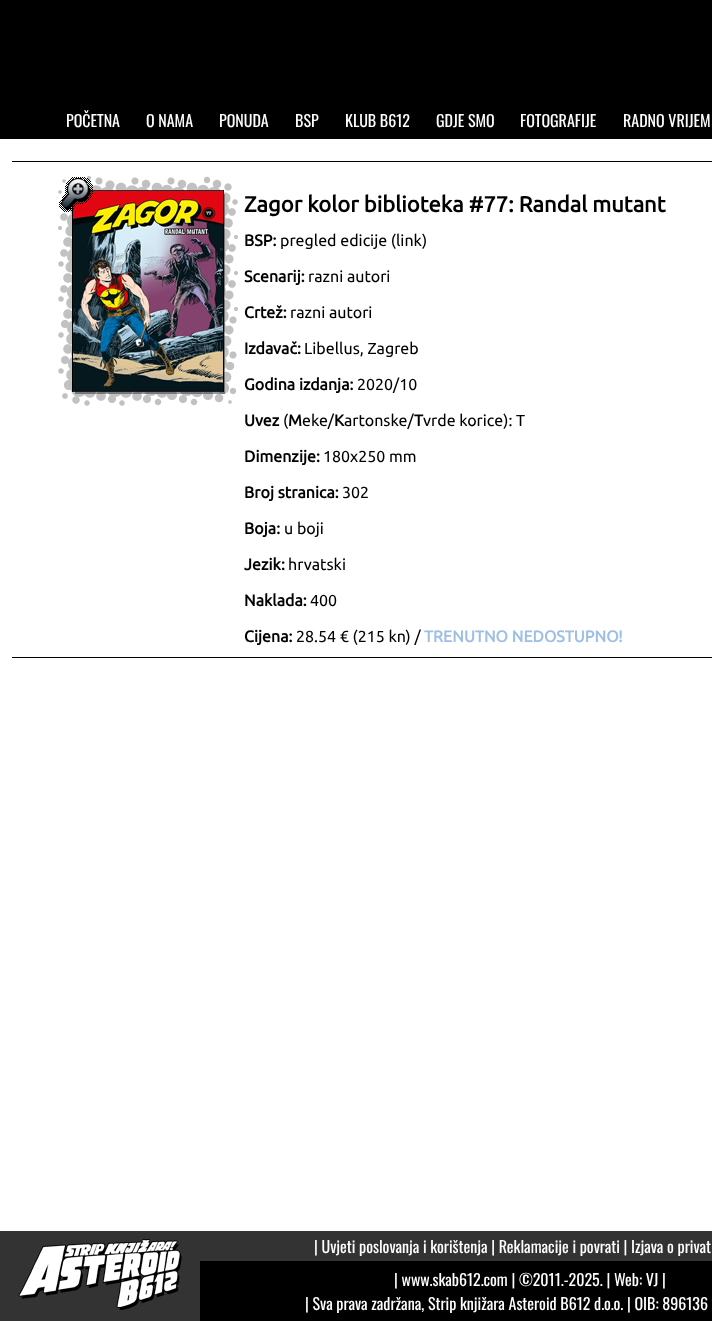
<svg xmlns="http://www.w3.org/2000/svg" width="712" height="1321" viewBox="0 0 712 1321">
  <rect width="100%" height="100%" fill="rgb(0,0,0)"/>
  <g font-family="Oswald" font-size="16" fill="rgb(255,255,255)">
    <text x="66" y="127">POČETNA</text>
    <text x="146" y="127">O NAMA</text>
    <text x="219" y="127">PONUDA</text>
    <text x="295" y="127">BSP</text>
    <text x="345" y="127">KLUB B612</text>
    <text x="436" y="127">GDJE SMO</text>
    <text x="520" y="127">FOTOGRAFIJE</text>
    <text x="623" y="127">RADNO VRIJEM</text>
  </g>
  <rect x="0" y="139" width="712" height="1092" fill="rgb(255,255,255)"/>
  <rect x="12" y="161" width="700" height="1" fill="rgb(0,0,0)"/>
  <image x="58" y="179" width="14" height="12" href="pic1.png"/>
  <image x="73" y="176" width="150" height="15" href="pic2.png"/>
  <image x="223" y="183" width="9" height="8" href="pic3.png"/>
  <image x="58" y="191" width="15" height="200" href="pic4.png"/>
  <image x="73" y="191" width="150" height="200" href="pic5.png"/>
  <image x="223" y="191" width="15" height="200" href="pic6.png"/>
  <image x="62" y="391" width="11" height="11" href="pic7.png"/>
  <image x="73" y="391" width="150" height="15" href="pic8.png"/>
  <image x="223" y="391" width="14" height="13" href="pic9.png"/>
  <image x="59" y="177" width="34" height="35" href="pic10.png"/>
  <text x="244" y="212" font-family="Ubuntu" font-size="22" font-weight="bold" fill="rgb(0,0,0)">Zagor kolor biblioteka #77: Randal mutant</text>
  <text x="244" y="246" font-family="Ubuntu" font-size="16" font-weight="bold" fill="rgb(0,0,0)">BSP:</text>
  <text x="280" y="246" font-family="Ubuntu" font-size="16" fill="rgb(0,0,0)">pregled edicije (link)</text>
  <text x="244" y="282" font-family="Ubuntu" font-size="16" font-weight="bold" fill="rgb(0,0,0)">Scenarij:</text>
  <text x="308" y="282" font-family="Ubuntu" font-size="16" fill="rgb(0,0,0)">razni autori</text>
  <text x="244" y="318" font-family="Ubuntu" font-size="16" font-weight="bold" fill="rgb(0,0,0)">Crtež:</text>
  <text x="290" y="318" font-family="Ubuntu" font-size="16" fill="rgb(0,0,0)">razni autori</text>
  <text x="244" y="354" font-family="Ubuntu" font-size="16" font-weight="bold" fill="rgb(0,0,0)">Izdavač:</text>
  <text x="304" y="354" font-family="Ubuntu" font-size="16" fill="rgb(0,0,0)">Libellus, Zagreb</text>
  <text x="244" y="390" font-family="Ubuntu" font-size="16" font-weight="bold" fill="rgb(0,0,0)">Godina izdanja:</text>
  <text x="357" y="390" font-family="Ubuntu" font-size="16" fill="rgb(0,0,0)">2020/10</text>
  <text x="244" y="426" font-family="Ubuntu" font-size="16" font-weight="bold" fill="rgb(0,0,0)">Uvez</text>
  <text x="283" y="426" font-family="Ubuntu" font-size="16" fill="rgb(0,0,0)">(</text>
  <text x="288" y="426" font-family="Ubuntu" font-size="16" font-weight="bold" fill="rgb(0,0,0)">M</text>
  <text x="302" y="426" font-family="Ubuntu" font-size="16" fill="rgb(0,0,0)">eke/</text>
  <text x="334" y="426" font-family="Ubuntu" font-size="16" font-weight="bold" fill="rgb(0,0,0)">K</text>
  <text x="344" y="426" font-family="Ubuntu" font-size="16" fill="rgb(0,0,0)">artonske/</text>
  <text x="414" y="426" font-family="Ubuntu" font-size="16" font-weight="bold" fill="rgb(0,0,0)">T</text>
  <text x="423" y="426" font-family="Ubuntu" font-size="16" fill="rgb(0,0,0)">vrde korice): T</text>
  <text x="244" y="462" font-family="Ubuntu" font-size="16" font-weight="bold" fill="rgb(0,0,0)">Dimenzije:</text>
  <text x="323" y="462" font-family="Ubuntu" font-size="16" fill="rgb(0,0,0)">180x250 mm</text>
  <text x="244" y="498" font-family="Ubuntu" font-size="16" font-weight="bold" fill="rgb(0,0,0)">Broj stranica:</text>
  <text x="342" y="498" font-family="Ubuntu" font-size="16" fill="rgb(0,0,0)">302</text>
  <text x="244" y="534" font-family="Ubuntu" font-size="16" font-weight="bold" fill="rgb(0,0,0)">Boja:</text>
  <text x="284" y="534" font-family="Ubuntu" font-size="16" fill="rgb(0,0,0)">u boji</text>
  <text x="244" y="570" font-family="Ubuntu" font-size="16" font-weight="bold" fill="rgb(0,0,0)">Jezik:</text>
  <text x="288" y="570" font-family="Ubuntu" font-size="16" fill="rgb(0,0,0)">hrvatski</text>
  <text x="244" y="606" font-family="Ubuntu" font-size="16" font-weight="bold" fill="rgb(0,0,0)">Naklada:</text>
  <text x="310" y="606" font-family="Ubuntu" font-size="16" fill="rgb(0,0,0)">400</text>
  <text x="244" y="642" font-family="Ubuntu" font-size="16" font-weight="bold" fill="rgb(0,0,0)">Cijena:</text>
  <text x="296" y="642" font-family="Ubuntu" font-size="16" fill="rgb(0,0,0)">28.54 € (215 kn) /</text>
  <text x="424" y="642" font-family="Ubuntu" font-size="16" font-weight="bold" fill="rgb(157,191,228)">TRENUTNO NEDOSTUPNO!</text>
  <rect x="12" y="657" width="700" height="1" fill="rgb(0,0,0)"/>
  <rect x="0" y="1231" width="200" height="90" fill="rgb(51,51,51)"/>
  <image x="18" y="1239" width="164" height="71" href="pic11.png"/>
  <rect x="200" y="1231" width="512" height="30" fill="rgb(51,51,51)"/>
  <g font-family="Oswald" font-size="16" fill="rgb(255,255,255)">
    <text x="314" y="1253">| Uvjeti poslovanja i korištenja | Reklamacije i povrati | Izjava o privat</text>
    <text x="394" y="1286">| www.skab612.com | ©2011.-2025. | Web: VJ |</text>
    <text x="305" y="1310">| Sva prava zadržana, Strip knjižara Asteroid B612 d.o.o. | OIB: 896136</text>
  </g>
</svg>
